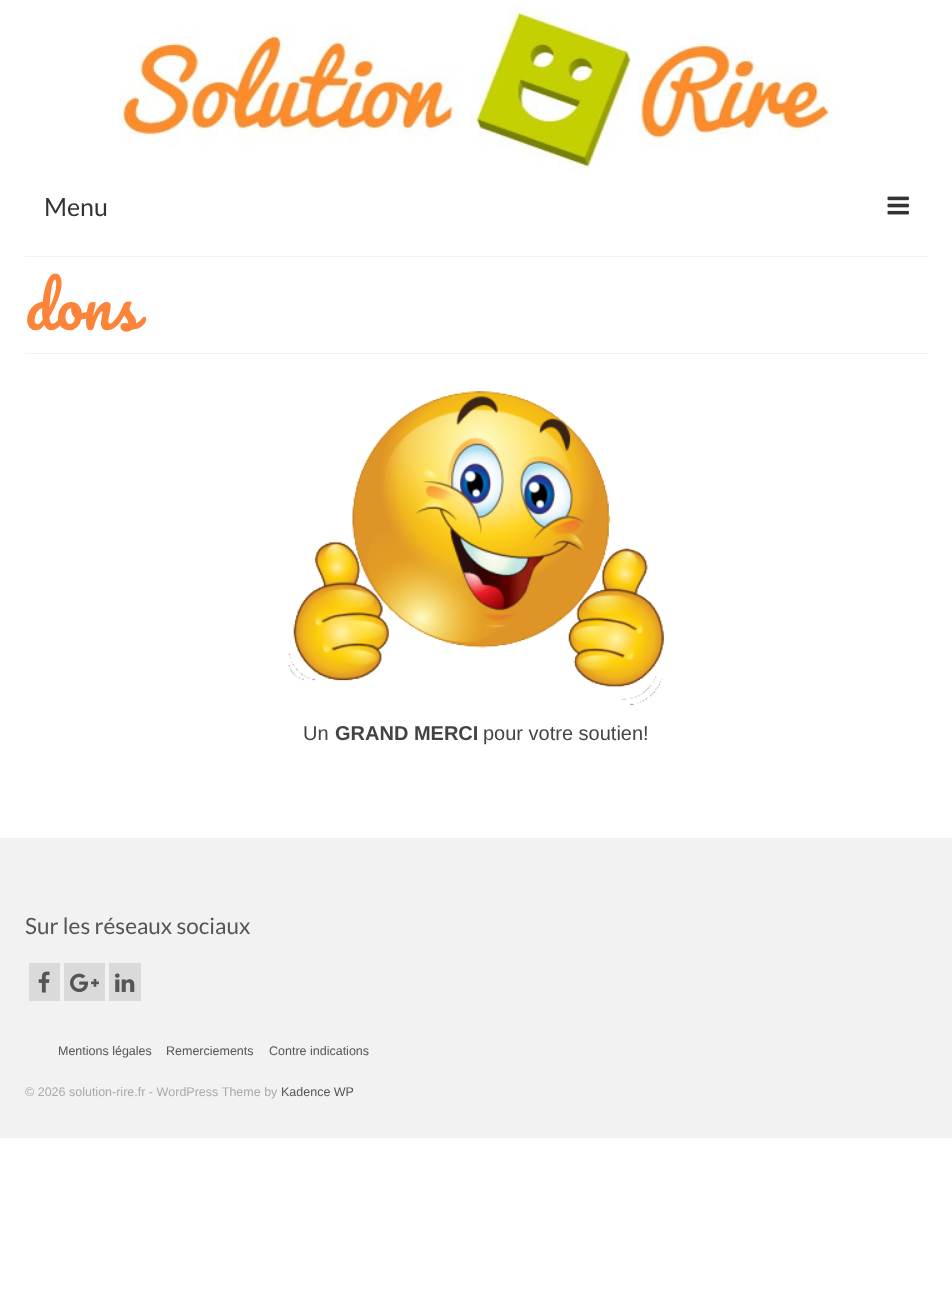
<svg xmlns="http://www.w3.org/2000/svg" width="952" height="1316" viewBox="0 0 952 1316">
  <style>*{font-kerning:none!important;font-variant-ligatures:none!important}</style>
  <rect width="100%" height="100%" fill="rgb(255,255,255)"/>
  <image x="119" y="6" width="715" height="163" href="pic1.png"/>
  <text x="44" y="216" font-family="Lato" font-size="25" fill="rgb(51,51,51)">Menu</text>
  <image x="887" y="196" width="22" height="19" href="pic2.png"/>
  <rect x="25" y="256" width="903" height="1" fill="rgb(242,242,242)"/>
  <rect x="25" y="353" width="903" height="1" fill="rgb(242,242,242)"/>
  <text x="25" y="330" font-family="Pacifico" font-size="60" fill="rgb(252,132,58)">dons</text>
  <image x="288" y="391" width="376" height="314" href="pic3.png"/>
  <text x="303" y="740" font-family="Liberation Sans" font-size="20" fill="rgb(68,68,68)">Un</text>
  <text x="335" y="740" font-family="Liberation Sans" font-size="20" font-weight="bold" fill="rgb(68,68,68)">GRAND MERCI</text>
  <text x="483" y="740" font-family="Liberation Sans" font-size="20" fill="rgb(68,68,68)">pour votre soutien!</text>
  <rect x="0" y="838" width="952" height="300" fill="rgb(242,242,242)"/>
  <text x="25" y="934" font-family="Lato" font-size="22.5" fill="rgb(85,85,85)">Sur les réseaux sociaux</text>
  <rect x="29" y="963" width="31" height="38" fill="rgb(218,218,218)"/>
  <image x="38" y="971" width="12" height="22" href="pic4.png"/>
  <rect x="64" y="963" width="41" height="38" fill="rgb(218,218,218)"/>
  <image x="70" y="973" width="29" height="20" href="pic5.png"/>
  <rect x="109" y="963" width="32" height="38" fill="rgb(218,218,218)"/>
  <image x="115" y="973" width="20" height="19" href="pic6.png"/>
  <g font-family="Liberation Sans" font-size="12.5" fill="rgb(85,85,85)">
    <text x="58" y="1055">Mentions légales</text>
    <text x="166" y="1055">Remerciements</text>
    <text x="269" y="1055">Contre indications</text>
  </g>
  <text x="25" y="1096" font-family="Liberation Sans" font-size="12.5" fill="rgb(170,170,170)">© 2026 solution-rire.fr - WordPress Theme by</text>
  <text x="281" y="1096" font-family="Liberation Sans" font-size="12.5" fill="rgb(85,85,85)">Kadence WP</text>
</svg>
